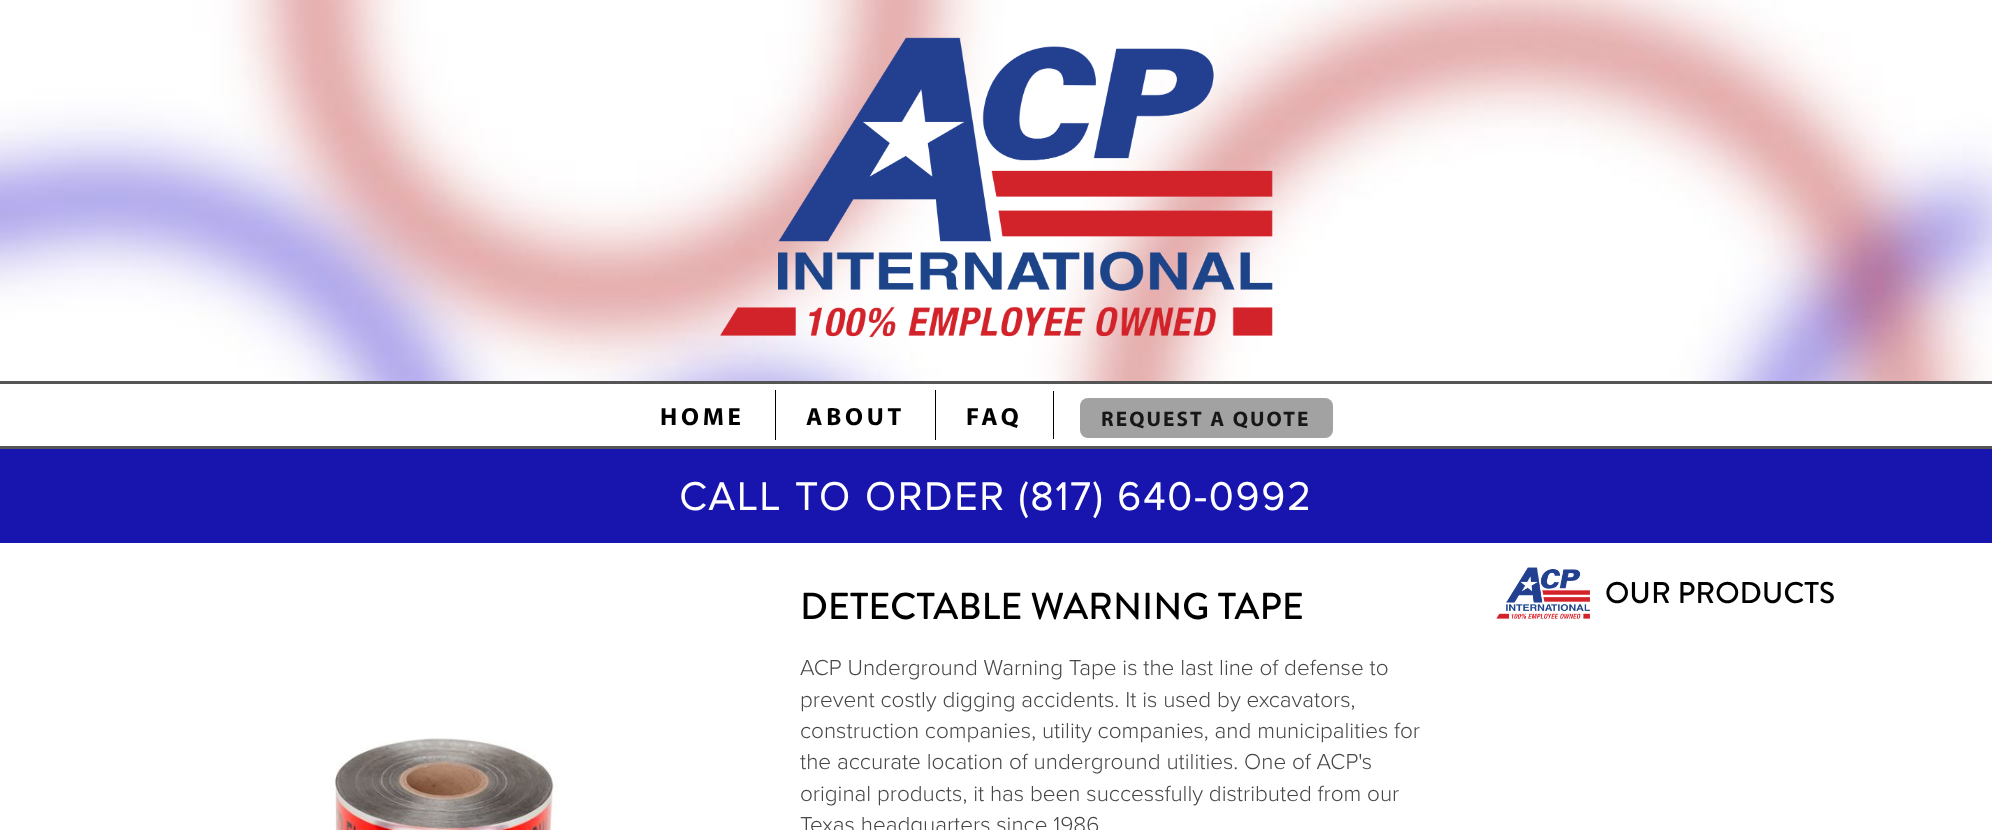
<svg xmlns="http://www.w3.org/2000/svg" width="1992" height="830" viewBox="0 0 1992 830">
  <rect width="100%" height="100%" fill="rgb(255,255,255)"/>
  <image x="0" y="0" width="1992" height="381" href="pic1.png"/>
  <image x="720" y="37" width="553" height="301" href="pic2.png"/>
  <rect x="0" y="381" width="1992" height="3" fill="rgb(85,85,85)"/>
  <rect x="0" y="446" width="1992" height="3" fill="rgb(85,85,85)"/>
  <text x="660" y="425" font-family="Myriad" font-size="25" font-weight="bold" letter-spacing="3.75" fill="rgb(0,0,0)">HOME</text>
  <rect x="775" y="390" width="1" height="50" fill="rgb(0,0,0)"/>
  <text x="806" y="425" font-family="Myriad" font-size="25" font-weight="bold" letter-spacing="3.75" fill="rgb(0,0,0)">ABOUT</text>
  <rect x="935" y="390" width="1" height="50" fill="rgb(0,0,0)"/>
  <text x="966" y="425" font-family="Myriad" font-size="25" font-weight="bold" letter-spacing="3.75" fill="rgb(0,0,0)">FAQ</text>
  <rect x="1053" y="391" width="1" height="48" fill="rgb(0,0,0)"/>
  <rect x="1080" y="398" width="253" height="40" rx="8" fill="rgb(162,162,162)"/>
  <text x="1101" y="426" font-family="Myriad" font-size="21.25" font-weight="bold" letter-spacing="2.1" fill="rgb(23,23,23)">REQUEST A QUOTE</text>
  <rect x="0" y="449" width="1992" height="94" fill="rgb(23,21,174)"/>
  <text x="679" y="510" font-family="Proxima Nova" font-size="40" font-weight="bold" letter-spacing="2.5" fill="rgb(255,255,255)">CALL TO ORDER (817) 640-0992</text>
  <image x="330" y="738" width="228" height="92" href="pic3.png"/>
  <text x="800" y="619" font-family="Brandon Grotesque" font-size="37.5" font-weight="500" fill="rgb(0,0,0)">DETECTABLE WARNING TAPE</text>
  <g font-family="Proxima Nova" font-size="22.5" font-weight="300" fill="rgb(70,70,70)">
    <text>
      <tspan x="800" y="675">ACP Underground Warning Tape is the last line of defense to</tspan>
      <tspan x="800" y="707">prevent costly digging accidents. It is used by excavators,</tspan>
      <tspan x="800" y="738">construction companies, utility companies, and municipalities for</tspan>
      <tspan x="800" y="769">the accurate location of underground utilities. One of ACP's</tspan>
      <tspan x="800" y="801">original products, it has been successfully distributed from our</tspan>
      <tspan x="800" y="832">Texas headquarters since 1986</tspan>
    </text>
  </g>
  <image x="1496" y="567" width="94" height="52" href="pic4.png"/>
  <text x="1605" y="603" font-family="Brandon Grotesque" font-size="30" font-weight="500" fill="rgb(0,0,0)">OUR PRODUCTS</text>
</svg>
